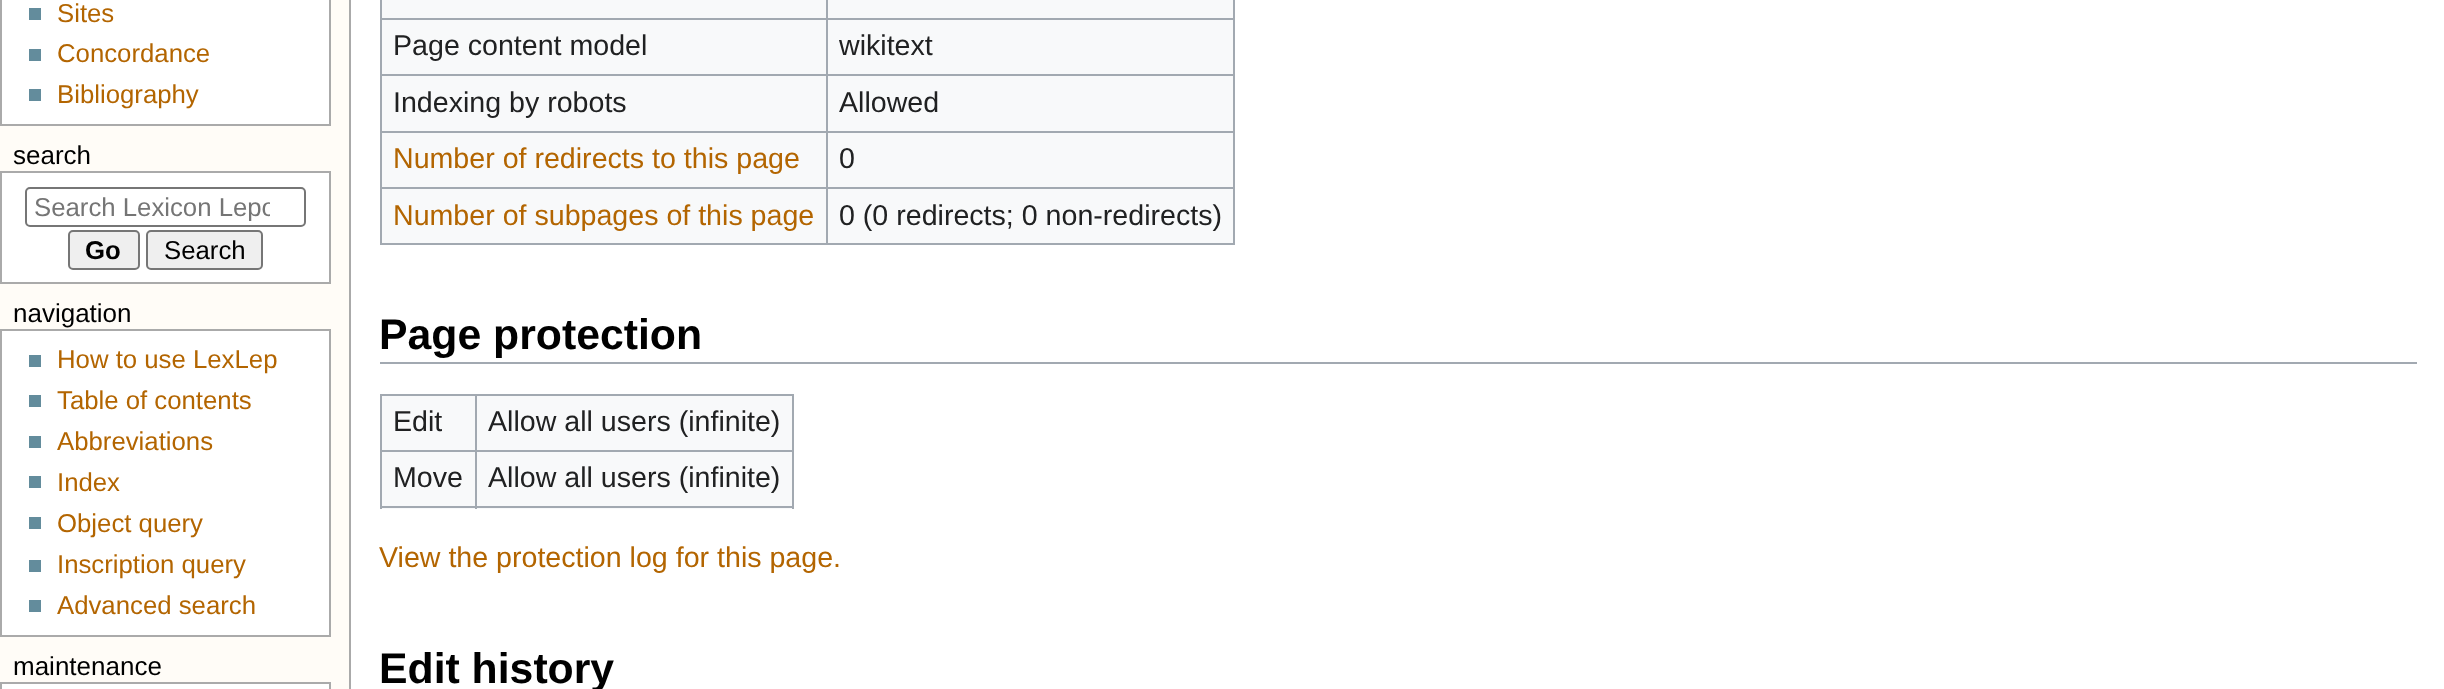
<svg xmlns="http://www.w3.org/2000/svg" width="2444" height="689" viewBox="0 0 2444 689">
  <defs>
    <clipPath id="clip1"><rect x="34" y="194" width="236" height="27"/></clipPath>
  </defs>
  <rect width="100%" height="100%" fill="rgb(255,252,247)"/>
  <rect x="1" y="-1" width="329" height="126" fill="rgb(255,255,255)" stroke="rgb(170,170,170)" stroke-width="2"/>
  <rect x="29" y="8" width="12" height="12" fill="rgb(99,140,156)"/>
  <text x="57" y="22" font-family="Liberation Sans" font-size="25.75" fill="rgb(179,101,0)">Sites</text>
  <rect x="29" y="49" width="12" height="12" fill="rgb(99,140,156)"/>
  <text x="57" y="62" font-family="Liberation Sans" font-size="25.75" fill="rgb(179,101,0)">Concordance</text>
  <rect x="29" y="89" width="12" height="12" fill="rgb(99,140,156)"/>
  <text x="57" y="103" font-family="Liberation Sans" font-size="25.75" fill="rgb(179,101,0)">Bibliography</text>
  <text x="13" y="164" font-family="Liberation Sans" font-size="26" fill="rgb(0,0,0)">search</text>
  <rect x="1" y="172" width="329" height="111" fill="rgb(255,255,255)" stroke="rgb(170,170,170)" stroke-width="2"/>
  <rect x="26" y="188" width="279" height="38" rx="4" fill="none" stroke="rgb(118,118,118)" stroke-width="2"/>
  <g clip-path="url(#clip1)">
    <text x="34" y="216" font-family="Liberation Sans" font-size="25.75" fill="rgb(117,117,117)">Search Lexicon Lepo</text>
  </g>
  <rect x="69" y="231" width="70" height="38" rx="4" fill="rgb(239,239,239)" stroke="rgb(118,118,118)" stroke-width="2"/>
  <text x="85" y="259" font-family="Liberation Sans" font-size="25.75" font-weight="bold" fill="rgb(0,0,0)">Go</text>
  <rect x="147" y="231" width="115" height="38" rx="4" fill="rgb(239,239,239)" stroke="rgb(118,118,118)" stroke-width="2"/>
  <text x="164" y="259" font-family="Liberation Sans" font-size="25.75" fill="rgb(0,0,0)">Search</text>
  <text x="13" y="322" font-family="Liberation Sans" font-size="26" fill="rgb(0,0,0)">navigation</text>
  <rect x="1" y="330" width="329" height="306" fill="rgb(255,255,255)" stroke="rgb(170,170,170)" stroke-width="2"/>
  <rect x="29" y="355" width="12" height="12" fill="rgb(99,140,156)"/>
  <text x="57" y="368" font-family="Liberation Sans" font-size="25.75" fill="rgb(179,101,0)">How to use LexLep</text>
  <rect x="29" y="395" width="12" height="12" fill="rgb(99,140,156)"/>
  <text x="57" y="409" font-family="Liberation Sans" font-size="25.75" fill="rgb(179,101,0)">Table of contents</text>
  <rect x="29" y="436" width="12" height="12" fill="rgb(99,140,156)"/>
  <text x="57" y="450" font-family="Liberation Sans" font-size="25.75" fill="rgb(179,101,0)">Abbreviations</text>
  <rect x="29" y="476" width="12" height="12" fill="rgb(99,140,156)"/>
  <text x="57" y="491" font-family="Liberation Sans" font-size="25.75" fill="rgb(179,101,0)">Index</text>
  <rect x="29" y="517" width="12" height="12" fill="rgb(99,140,156)"/>
  <text x="57" y="532" font-family="Liberation Sans" font-size="25.75" fill="rgb(179,101,0)">Object query</text>
  <rect x="29" y="560" width="12" height="12" fill="rgb(99,140,156)"/>
  <text x="57" y="573" font-family="Liberation Sans" font-size="25.75" fill="rgb(179,101,0)">Inscription query</text>
  <rect x="29" y="600" width="12" height="12" fill="rgb(99,140,156)"/>
  <text x="57" y="614" font-family="Liberation Sans" font-size="25.75" fill="rgb(179,101,0)">Advanced search</text>
  <text x="13" y="675" font-family="Liberation Sans" font-size="26" fill="rgb(0,0,0)">maintenance</text>
  <rect x="1" y="683" width="329" height="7" fill="rgb(255,255,255)" stroke="rgb(170,170,170)" stroke-width="2"/>
  <rect x="351" y="0" width="2093" height="689" fill="rgb(255,255,255)"/>
  <rect x="349" y="0" width="2" height="689" fill="rgb(170,170,170)"/>
  <rect x="382" y="0" width="851" height="243" fill="rgb(248,249,250)"/>
  <rect x="1233" y="0" width="2" height="245" fill="rgb(162,169,177)"/>
  <rect x="380" y="243" width="855" height="2" fill="rgb(162,169,177)"/>
  <rect x="380" y="0" width="2" height="245" fill="rgb(162,169,177)"/>
  <rect x="826" y="18" width="409" height="2" fill="rgb(162,169,177)"/>
  <rect x="826" y="74" width="409" height="2" fill="rgb(162,169,177)"/>
  <rect x="826" y="131" width="409" height="2" fill="rgb(162,169,177)"/>
  <rect x="826" y="187" width="409" height="2" fill="rgb(162,169,177)"/>
  <rect x="826" y="187" width="2" height="58" fill="rgb(162,169,177)"/>
  <rect x="380" y="187" width="448" height="2" fill="rgb(162,169,177)"/>
  <rect x="826" y="131" width="2" height="58" fill="rgb(162,169,177)"/>
  <rect x="380" y="131" width="448" height="2" fill="rgb(162,169,177)"/>
  <rect x="826" y="74" width="2" height="59" fill="rgb(162,169,177)"/>
  <rect x="380" y="74" width="448" height="2" fill="rgb(162,169,177)"/>
  <rect x="826" y="18" width="2" height="59" fill="rgb(162,169,177)"/>
  <rect x="380" y="18" width="448" height="2" fill="rgb(162,169,177)"/>
  <rect x="826" y="0" width="2" height="20" fill="rgb(162,169,177)"/>
  <g font-family="Liberation Sans" font-size="28.6" fill="rgb(32,33,34)">
    <text x="393" y="55">Page content model</text>
    <text x="839" y="55">wikitext</text>
    <text x="393" y="112">Indexing by robots</text>
    <text x="839" y="112">Allowed</text>
  </g>
  <text x="393" y="168" font-family="Liberation Sans" font-size="28.6" fill="rgb(179,101,0)">Number of redirects to this page</text>
  <text x="839" y="168" font-family="Liberation Sans" font-size="28.6" fill="rgb(32,33,34)">0</text>
  <text x="393" y="225" font-family="Liberation Sans" font-size="28.6" fill="rgb(179,101,0)">Number of subpages of this page</text>
  <text x="839" y="225" font-family="Liberation Sans" font-size="28.6" fill="rgb(32,33,34)">0 (0 redirects; 0 non-redirects)</text>
  <rect x="380" y="362" width="2037" height="2" fill="rgb(162,169,177)"/>
  <text x="379" y="349" font-family="Liberation Sans" font-size="42.75" font-weight="bold" fill="rgb(0,0,0)">Page protection</text>
  <rect x="382" y="396" width="410" height="113" fill="rgb(248,249,250)"/>
  <rect x="380" y="394" width="414" height="2" fill="rgb(162,169,177)"/>
  <rect x="792" y="394" width="2" height="115" fill="rgb(162,169,177)"/>
  <rect x="380" y="506" width="414" height="2" fill="rgb(162,169,177)"/>
  <rect x="380" y="394" width="2" height="115" fill="rgb(162,169,177)"/>
  <text x="393" y="431" font-family="Liberation Sans" font-size="28.6" fill="rgb(32,33,34)">Edit</text>
  <rect x="475" y="450" width="319" height="2" fill="rgb(162,169,177)"/>
  <rect x="475" y="450" width="2" height="59" fill="rgb(162,169,177)"/>
  <rect x="380" y="450" width="97" height="2" fill="rgb(162,169,177)"/>
  <rect x="475" y="394" width="2" height="58" fill="rgb(162,169,177)"/>
  <g font-family="Liberation Sans" font-size="28.6" fill="rgb(32,33,34)">
    <text x="488" y="431">Allow all users (infinite)</text>
    <text x="393" y="487">Move</text>
    <text x="488" y="487">Allow all users (infinite)</text>
  </g>
  <text x="379" y="567" font-family="Liberation Sans" font-size="28.6" fill="rgb(179,101,0)">View the protection log for this page.</text>
  <text x="379" y="683" font-family="Liberation Sans" font-size="42.75" font-weight="bold" fill="rgb(0,0,0)">Edit history</text>
</svg>
